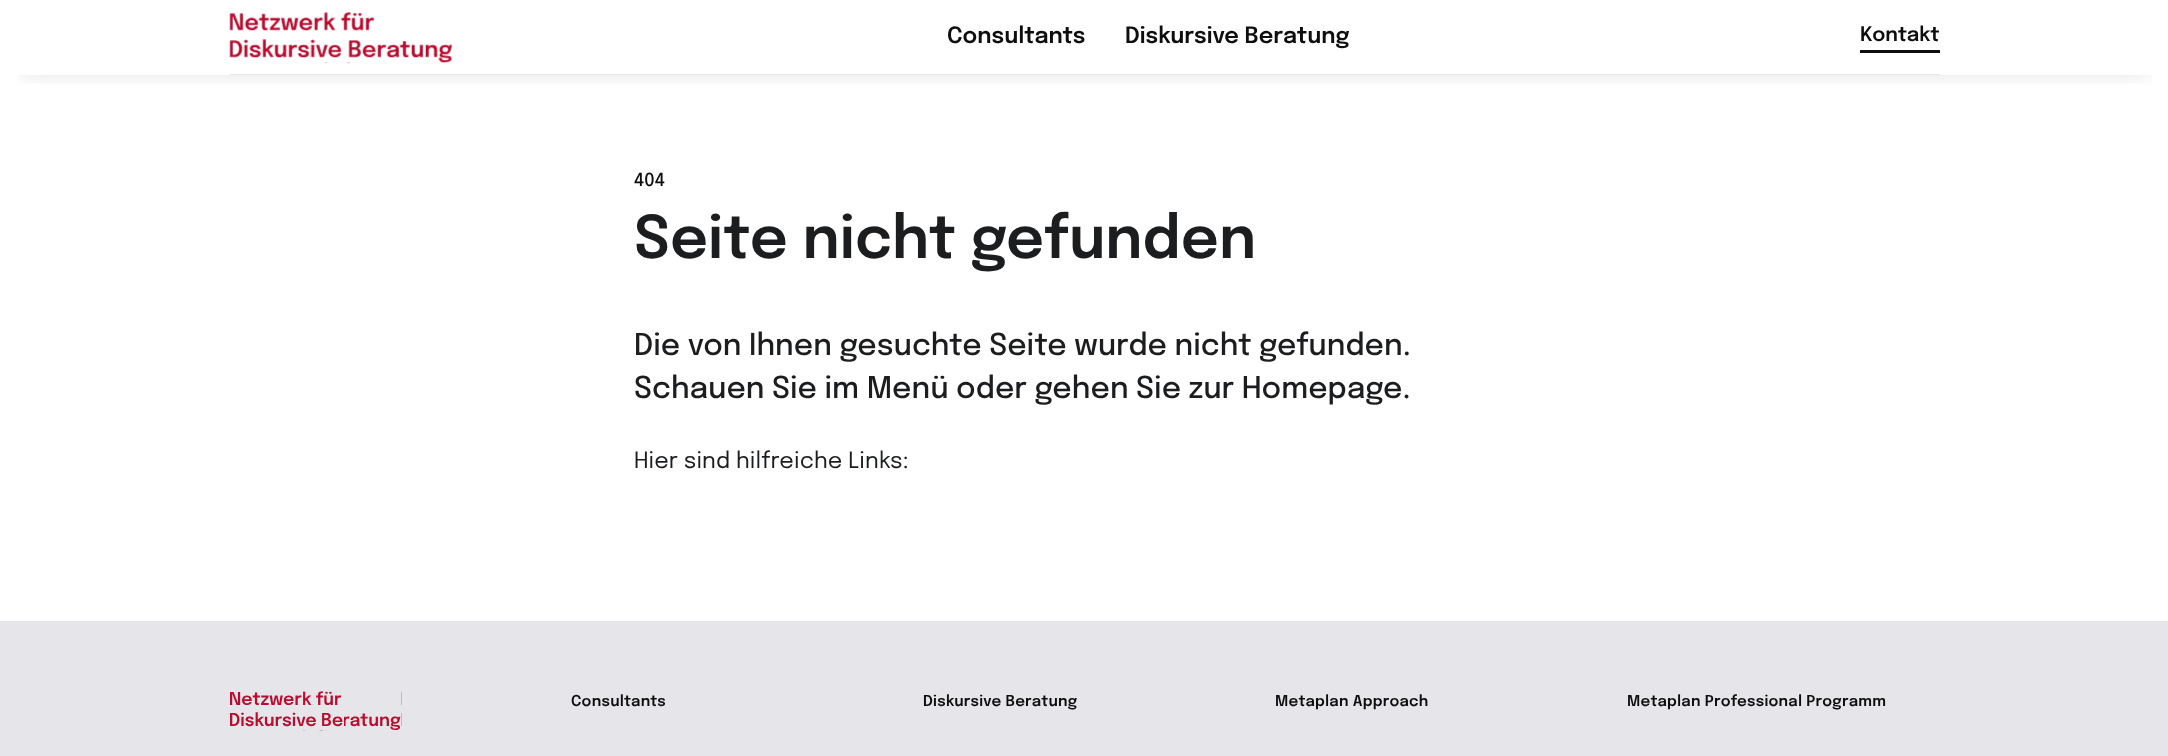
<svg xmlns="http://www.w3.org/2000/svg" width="2168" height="756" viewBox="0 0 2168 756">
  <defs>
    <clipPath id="clip1"><rect x="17" y="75" width="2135" height="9"/></clipPath>
  </defs>
  <rect width="100%" height="100%" fill="rgb(255,255,255)"/>
  <g clip-path="url(#clip1)">
    <rect x="21" y="39" width="2127" height="32" fill="rgba(0,0,0,0.15)" filter="blur(12px)"/>
  </g>
  <rect x="230" y="74" width="1710" height="1" fill="rgb(229,229,234)"/>
  <image x="229" y="12" width="224" height="52" href="pic1.png"/>
  <g font-family="Epilogue" font-size="22.5" font-weight="600" fill="rgb(14,14,14)">
    <text x="947" y="43">Consultants</text>
    <text x="1125" y="43">Diskursive Beratung</text>
  </g>
  <rect x="1860" y="50" width="80" height="3" fill="rgb(14,14,14)"/>
  <text x="1860" y="41" font-family="Epilogue" font-size="20" font-weight="600" fill="rgb(14,14,14)">Kontakt</text>
  <text x="634" y="186" font-family="Epilogue" font-size="18" font-weight="500" fill="rgb(14,14,14)">404</text>
  <text x="634" y="258" font-family="Epilogue" font-size="58.75" font-weight="600" fill="rgb(28,29,31)">Seite nicht gefunden</text>
  <g font-family="Epilogue" font-size="30" font-weight="500" fill="rgb(28,29,31)">
    <text>
      <tspan x="634" y="355">Die von Ihnen gesuchte Seite wurde nicht gefunden.</tspan>
      <tspan x="634" y="398">Schauen Sie im Menü oder gehen Sie zur Homepage.</tspan>
    </text>
  </g>
  <text x="634" y="468" font-family="Epilogue" font-size="22.5" letter-spacing="0.1" fill="rgb(28,29,31)">Hier sind hilfreiche Links:</text>
  <rect x="0" y="621" width="2168" height="135" fill="rgb(229,229,234)"/>
  <image x="230" y="691" width="172" height="40" href="pic2.png"/>
  <g font-family="Epilogue" font-size="15" font-weight="600" letter-spacing="0.25" fill="rgb(14,14,14)">
    <text x="571" y="706">Consultants</text>
    <text x="923" y="706">Diskursive Beratung</text>
    <text x="1275" y="706">Metaplan Approach</text>
    <text x="1627" y="706">Metaplan Professional Programm</text>
  </g>
</svg>
